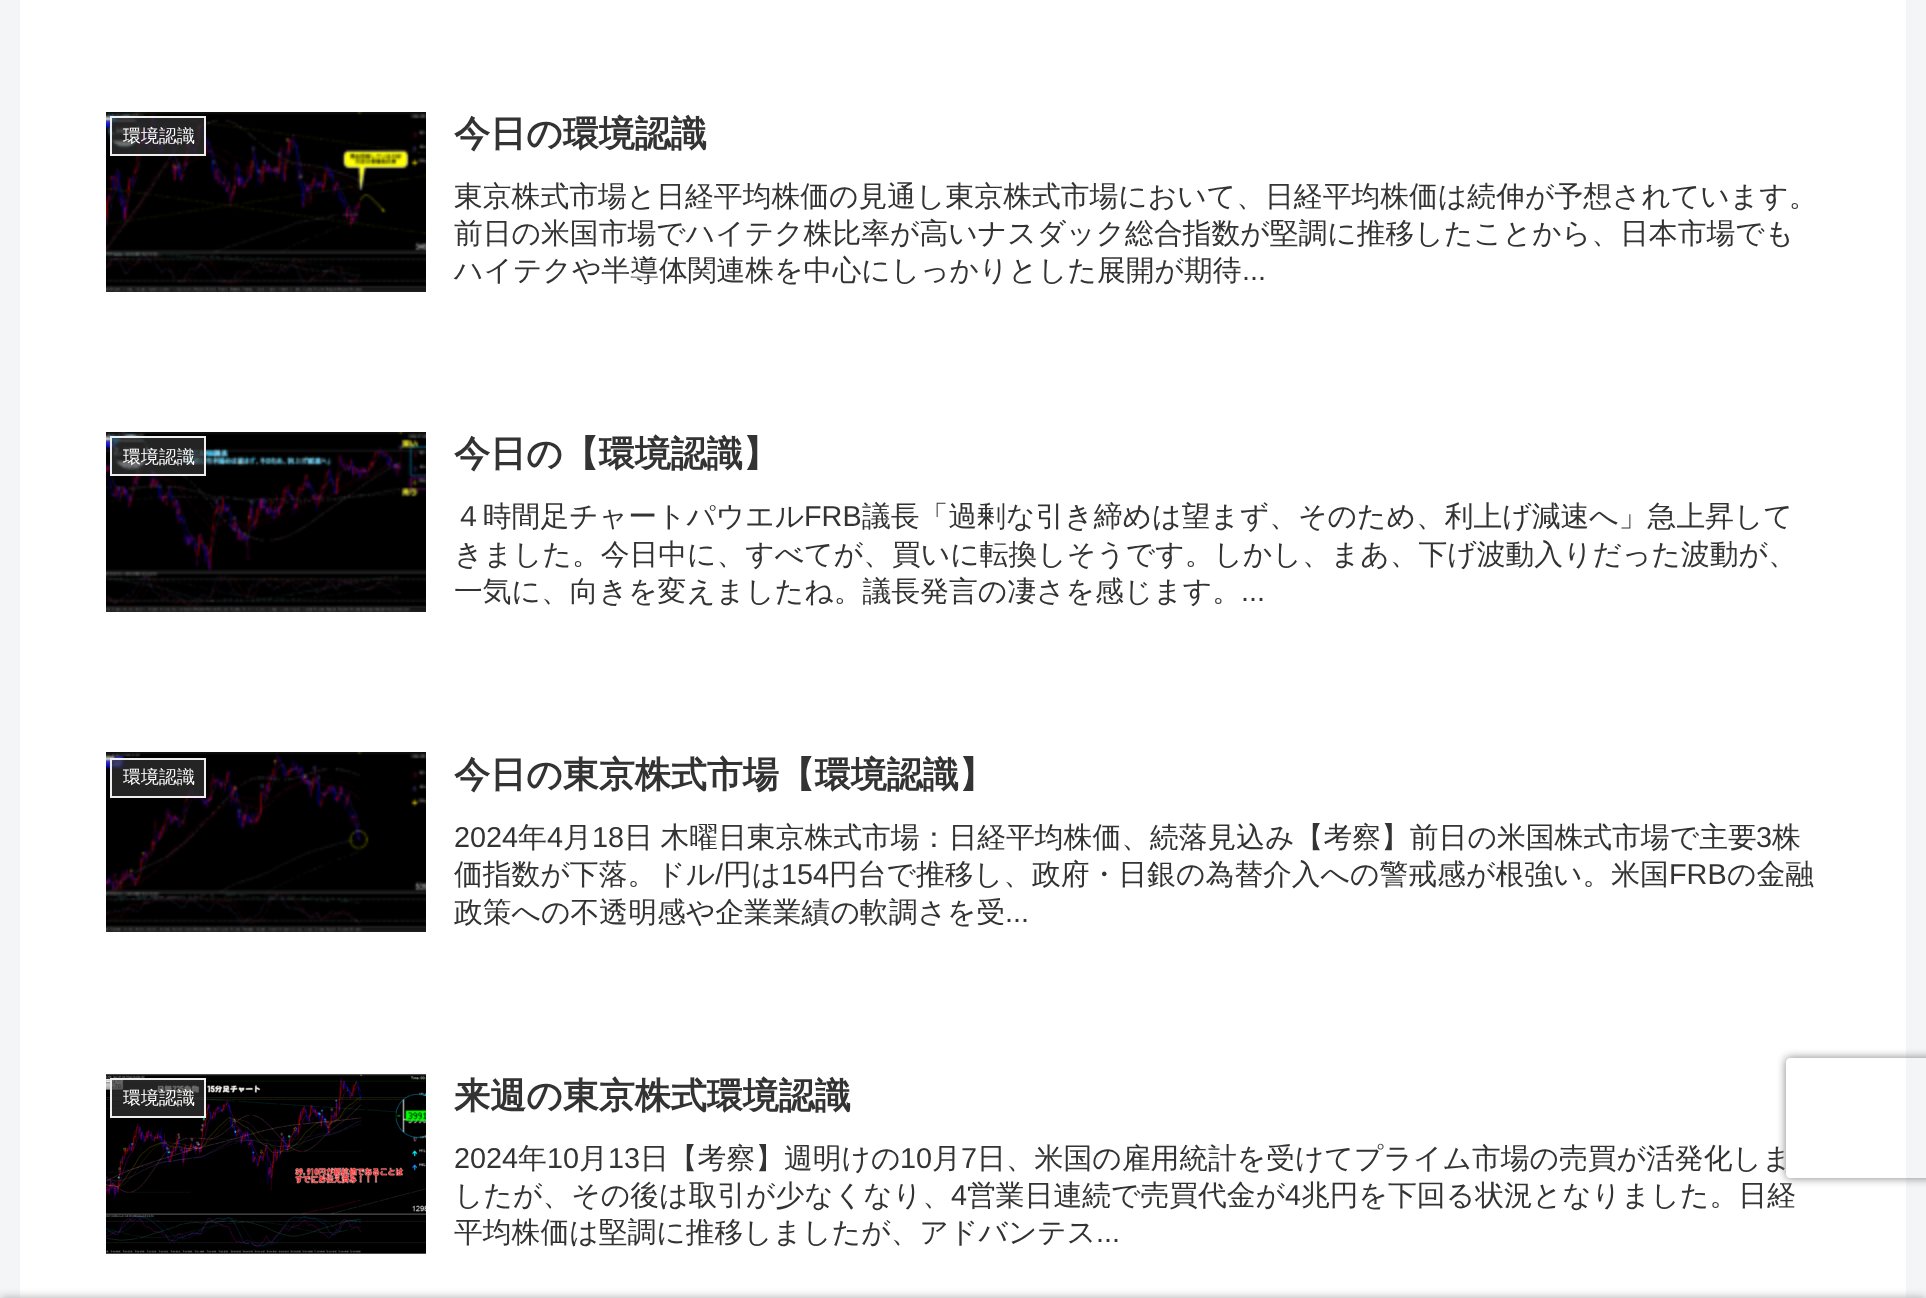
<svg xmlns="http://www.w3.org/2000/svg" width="1926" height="1298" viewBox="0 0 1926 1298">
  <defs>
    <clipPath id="clip1"><path d="M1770 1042H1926V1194H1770ZM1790 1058H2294C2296 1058 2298 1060 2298 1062V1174C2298 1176 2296 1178 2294 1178H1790C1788 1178 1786 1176 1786 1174V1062C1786 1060 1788 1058 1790 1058Z" clip-rule="evenodd"/></clipPath>
  </defs>
  <rect width="100%" height="100%" fill="rgb(244,245,247)"/>
  <rect x="20" y="0" width="1886" height="1298" fill="rgb(255,255,255)"/>
  <image x="106" y="112" width="320" height="180" href="pic1.png"/>
  <rect x="111" y="117" width="94" height="38" fill="rgba(51,51,51,0.7)" stroke="rgb(238,238,238)" stroke-width="2"/>
  <text x="123" y="142" font-family="WenQuanYi Zen Hei" font-size="18" font-weight="500" fill="rgb(255,255,255)">環境認識</text>
  <text x="454" y="146" font-family="WenQuanYi Zen Hei" font-size="36" font-weight="bold" fill="rgb(51,51,51)">今日の環境認識</text>
  <g font-family="WenQuanYi Zen Hei" font-size="28.8" font-weight="500" fill="rgb(51,51,51)">
    <text>
      <tspan x="454" y="206">東京株式市場と日経平均株価の見通し東京株式市場において、日経平均株価は続伸が予想されています。</tspan>
      <tspan x="454" y="243">前日の米国市場でハイテク株比率が高いナスダック総合指数が堅調に推移したことから、日本市場でも</tspan>
      <tspan x="454" y="280">ハイテクや半導体関連株を中心にしっかりとした展開が期待</tspan>
    </text>
  </g>
  <text x="1242" y="280" font-family="Liberation Sans" font-size="28.8" fill="rgb(51,51,51)">...</text>
  <image x="106" y="432" width="320" height="180" href="pic2.png"/>
  <rect x="111" y="437" width="94" height="38" fill="rgba(51,51,51,0.7)" stroke="rgb(238,238,238)" stroke-width="2"/>
  <text x="123" y="463" font-family="WenQuanYi Zen Hei" font-size="18" font-weight="500" fill="rgb(255,255,255)">環境認識</text>
  <text x="454" y="466" font-family="WenQuanYi Zen Hei" font-size="36" font-weight="bold" fill="rgb(51,51,51)">今日の【環境認識】</text>
  <text x="454" y="526" font-family="WenQuanYi Zen Hei" font-size="28.8" font-weight="500" fill="rgb(51,51,51)">４時間足チャートパウエル</text>
  <text x="804" y="526" font-family="Liberation Sans" font-size="28.8" fill="rgb(51,51,51)">FRB</text>
  <g font-family="WenQuanYi Zen Hei" font-size="28.8" font-weight="500" fill="rgb(51,51,51)">
    <text x="862" y="526">議長「過剰な引き締めは望まず、そのため、利上げ減速へ」急上昇して</text>
    <text>
      <tspan x="454" y="564">きました。今日中に、すべてが、買いに転換しそうです。しかし、まあ、下げ波動入りだった波動が、</tspan>
      <tspan x="454" y="601">一気に、向きを変えましたね。議長発言の凄さを感じます。</tspan>
    </text>
  </g>
  <text x="1241" y="601" font-family="Liberation Sans" font-size="28.8" fill="rgb(51,51,51)">...</text>
  <image x="106" y="752" width="320" height="180" href="pic3.png"/>
  <rect x="111" y="759" width="94" height="38" fill="rgba(51,51,51,0.7)" stroke="rgb(238,238,238)" stroke-width="2"/>
  <text x="123" y="783" font-family="WenQuanYi Zen Hei" font-size="18" font-weight="500" fill="rgb(255,255,255)">環境認識</text>
  <text x="454" y="787" font-family="WenQuanYi Zen Hei" font-size="36" font-weight="bold" fill="rgb(51,51,51)">今日の東京株式市場【環境認識】</text>
  <text x="454" y="847" font-family="Liberation Sans" font-size="28.8" fill="rgb(51,51,51)">2024</text>
  <text x="518" y="847" font-family="WenQuanYi Zen Hei" font-size="28.8" font-weight="500" fill="rgb(51,51,51)">年</text>
  <text x="547" y="847" font-family="Liberation Sans" font-size="28.8" fill="rgb(51,51,51)">4</text>
  <text x="563" y="847" font-family="WenQuanYi Zen Hei" font-size="28.8" font-weight="500" fill="rgb(51,51,51)">月</text>
  <text x="592" y="847" font-family="Liberation Sans" font-size="28.8" fill="rgb(51,51,51)">18</text>
  <text x="624" y="847" word-spacing="-1" font-family="WenQuanYi Zen Hei" font-size="28.8" font-weight="500" fill="rgb(51,51,51)">日 木曜日東京株式市場：日経平均株価、続落見込み【考察】前日の米国株式市場で主要</text>
  <text x="1756" y="847" font-family="Liberation Sans" font-size="28.8" fill="rgb(51,51,51)">3</text>
  <g font-family="WenQuanYi Zen Hei" font-size="28.8" font-weight="500" fill="rgb(51,51,51)">
    <text x="1772" y="847">株</text>
    <text x="454" y="884">価指数が下落。ドル</text>
  </g>
  <text x="715" y="884" font-family="Liberation Sans" font-size="28.8" fill="rgb(51,51,51)">/</text>
  <text x="723" y="884" font-family="WenQuanYi Zen Hei" font-size="28.8" font-weight="500" fill="rgb(51,51,51)">円は</text>
  <text x="781" y="884" font-family="Liberation Sans" font-size="28.8" fill="rgb(51,51,51)">154</text>
  <text x="829" y="884" font-family="WenQuanYi Zen Hei" font-size="28.8" font-weight="500" fill="rgb(51,51,51)">円台で推移し、政府・日銀の為替介入への警戒感が根強い。米国</text>
  <text x="1669" y="884" font-family="Liberation Sans" font-size="28.8" fill="rgb(51,51,51)">FRB</text>
  <g font-family="WenQuanYi Zen Hei" font-size="28.8" font-weight="500" fill="rgb(51,51,51)">
    <text x="1727" y="884">の金融</text>
    <text x="454" y="922">政策への不透明感や企業業績の軟調さを受</text>
  </g>
  <text x="1005" y="922" font-family="Liberation Sans" font-size="28.8" fill="rgb(51,51,51)">...</text>
  <image x="106" y="1074" width="320" height="180" href="pic4.png"/>
  <rect x="111" y="1079" width="94" height="38" fill="rgba(51,51,51,0.7)" stroke="rgb(238,238,238)" stroke-width="2"/>
  <text x="123" y="1104" font-family="WenQuanYi Zen Hei" font-size="18" font-weight="500" fill="rgb(255,255,255)">環境認識</text>
  <text x="454" y="1108" font-family="WenQuanYi Zen Hei" font-size="36" font-weight="bold" fill="rgb(51,51,51)">来週の東京株式環境認識</text>
  <text x="454" y="1168" font-family="Liberation Sans" font-size="28.8" fill="rgb(51,51,51)">2024</text>
  <text x="518" y="1168" font-family="WenQuanYi Zen Hei" font-size="28.8" font-weight="500" fill="rgb(51,51,51)">年</text>
  <text x="547" y="1168" font-family="Liberation Sans" font-size="28.8" fill="rgb(51,51,51)">10</text>
  <text x="579" y="1168" font-family="WenQuanYi Zen Hei" font-size="28.8" font-weight="500" fill="rgb(51,51,51)">月</text>
  <text x="608" y="1168" font-family="Liberation Sans" font-size="28.8" fill="rgb(51,51,51)">13</text>
  <text x="640" y="1168" font-family="WenQuanYi Zen Hei" font-size="28.8" font-weight="500" fill="rgb(51,51,51)">日【考察】週明けの</text>
  <text x="900" y="1168" font-family="Liberation Sans" font-size="28.8" fill="rgb(51,51,51)">10</text>
  <text x="932" y="1168" font-family="WenQuanYi Zen Hei" font-size="28.8" font-weight="500" fill="rgb(51,51,51)">月</text>
  <text x="961" y="1168" font-family="Liberation Sans" font-size="28.8" fill="rgb(51,51,51)">7</text>
  <g font-family="WenQuanYi Zen Hei" font-size="28.8" font-weight="500" fill="rgb(51,51,51)">
    <text x="977" y="1168">日、米国の雇用統計を受けてプライム市場の売買が活発化しま</text>
    <text x="454" y="1205">したが、その後は取引が少なくなり、</text>
  </g>
  <text x="951" y="1205" font-family="Liberation Sans" font-size="28.8" fill="rgb(51,51,51)">4</text>
  <text x="967" y="1205" font-family="WenQuanYi Zen Hei" font-size="28.8" font-weight="500" fill="rgb(51,51,51)">営業日連続で売買代金が</text>
  <text x="1285" y="1205" font-family="Liberation Sans" font-size="28.8" fill="rgb(51,51,51)">4</text>
  <g font-family="WenQuanYi Zen Hei" font-size="28.8" font-weight="500" fill="rgb(51,51,51)">
    <text x="1301" y="1205">兆円を下回る状況となりました。日経</text>
    <text x="454" y="1242">平均株価は堅調に推移しましたが、アドバンテス</text>
  </g>
  <text x="1096" y="1242" font-family="Liberation Sans" font-size="28.8" fill="rgb(51,51,51)">...</text>
  <rect x="0" y="1298" width="1926" height="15" fill="rgb(169,169,169)" filter="blur(5px)"/>
  <g clip-path="url(#clip1)">
    <rect x="1786" y="1058" width="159" height="120" rx="4" fill="rgb(128,128,128)" filter="blur(5px)"/>
  </g>
</svg>
